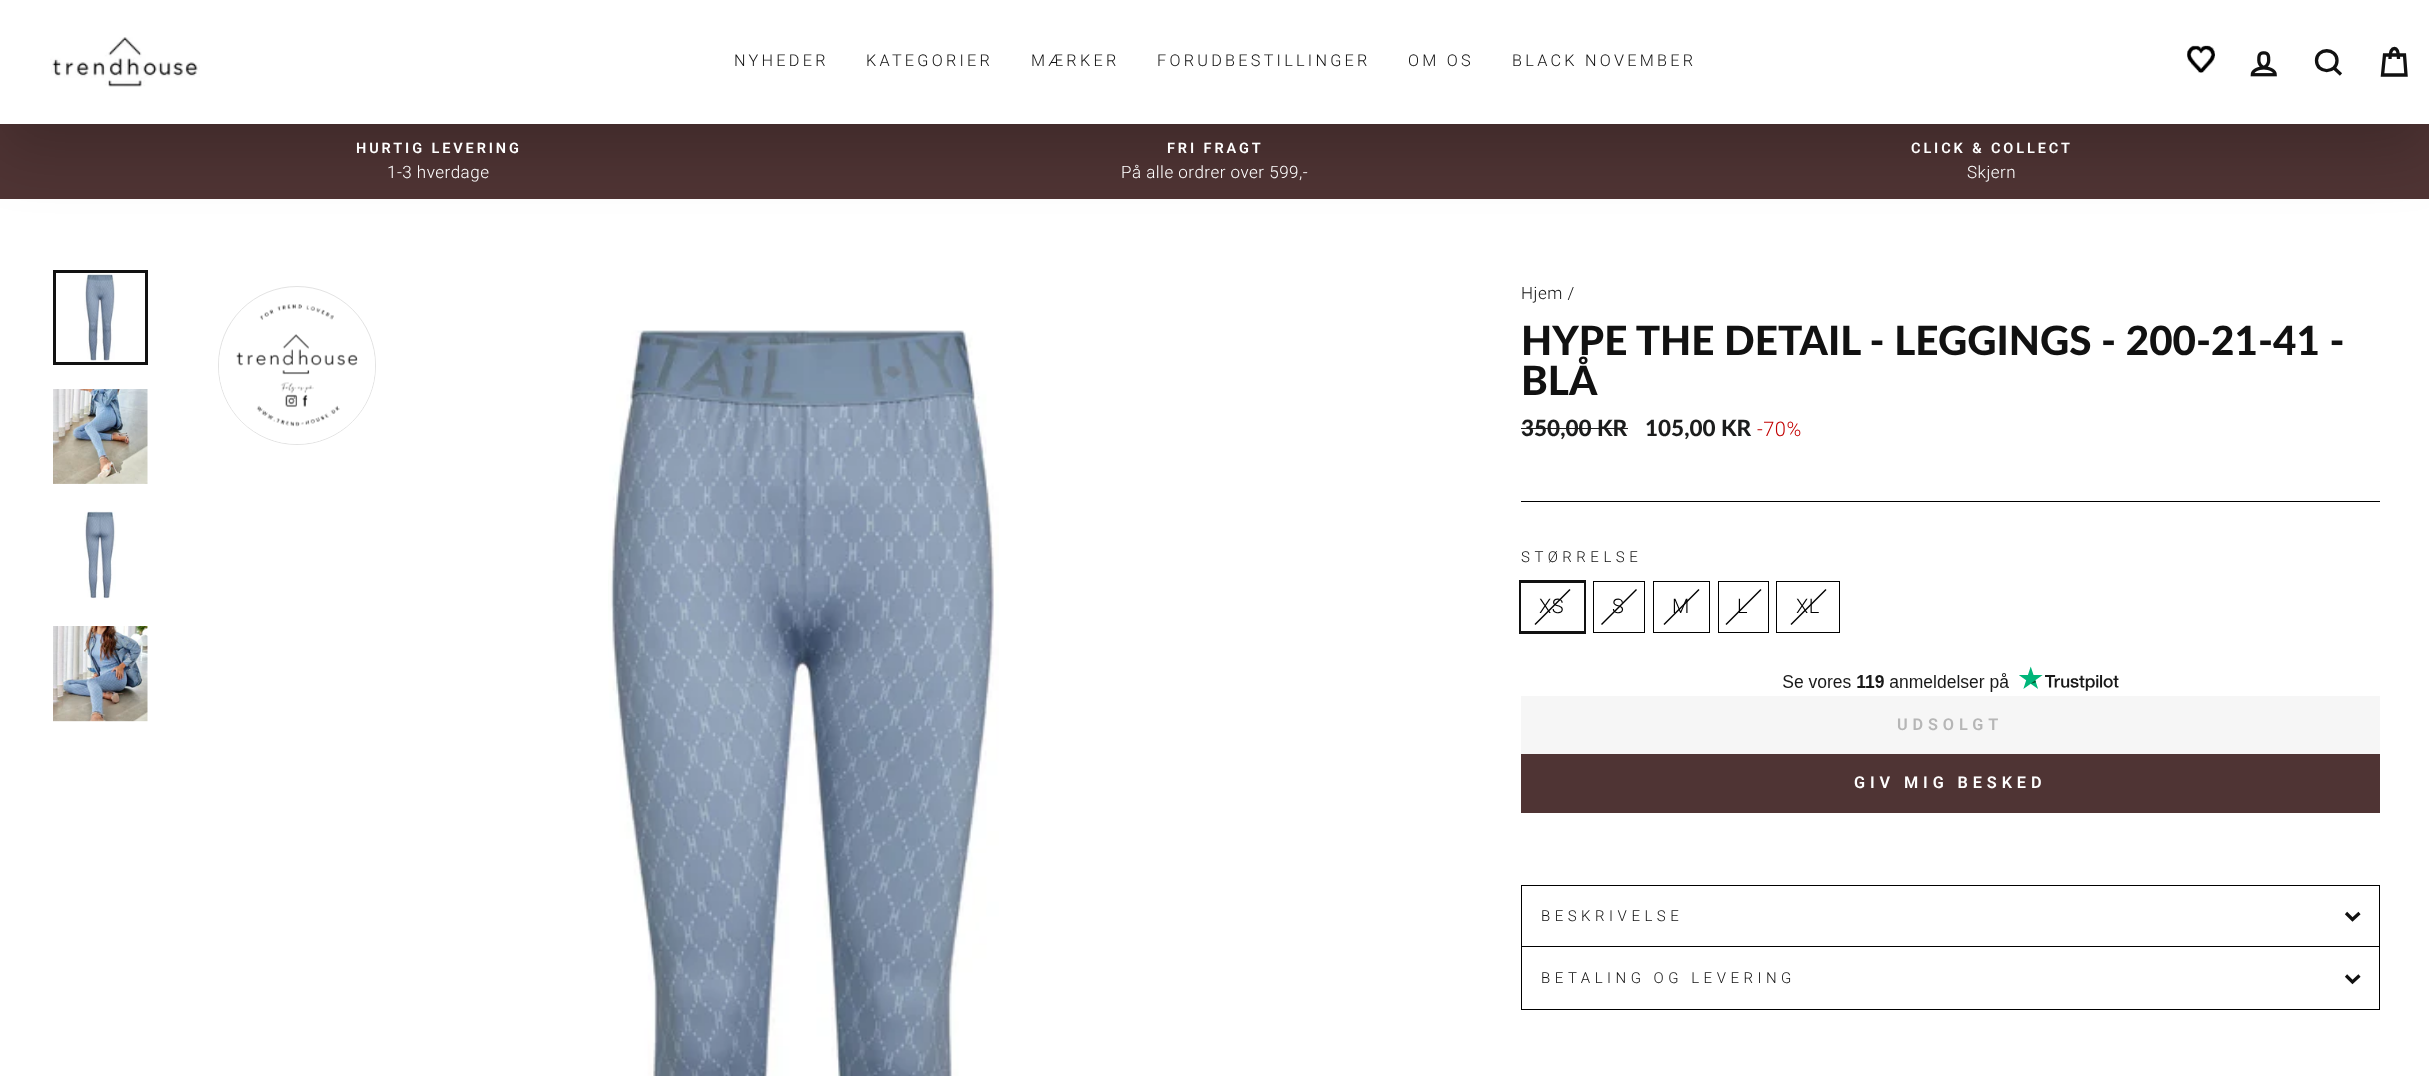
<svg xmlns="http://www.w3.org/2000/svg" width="2429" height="1076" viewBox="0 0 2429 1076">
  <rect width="100%" height="100%" fill="rgb(255,255,255)"/>
  <rect x="0" y="124" width="2429" height="75" fill="rgb(79,52,52)"/>
  <rect x="0" y="25" width="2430" height="124" fill="rgba(0,0,0,0.2)" filter="blur(31px)"/>
  <rect x="0" y="0" width="2429" height="124" fill="rgb(255,255,255)"/>
  <image x="50" y="37" width="150" height="50" href="pic1.png"/>
  <g font-family="Roboto" font-size="16.25" font-weight="300" letter-spacing="3.25" fill="rgb(17,17,17)">
    <text x="734" y="66">NYHEDER</text>
    <text x="866" y="66">KATEGORIER</text>
    <text x="1031" y="66">MÆRKER</text>
    <text x="1157" y="66">FORUDBESTILLINGER</text>
    <text x="1408" y="66">OM OS</text>
    <text x="1512" y="66">BLACK NOVEMBER</text>
  </g>
  <image x="2187" y="45" width="28" height="28" href="pic2.png"/>
  <image x="2250" y="51" width="27" height="26" href="pic3.png"/>
  <path d="M2337 60.5C2337 74 2316.5 74 2316.5 60.5C2316.5 47.5 2337 47.5 2337 60.5ZM2341 74.5L2334 68" fill="none" stroke="rgb(17,17,17)" stroke-width="3.3"/>
  <path d="M2390 59C2390 50.5 2392 48.5 2394.5 48.5C2396.5 48.5 2398.5 50.5 2398.5 59M2384.5 55H2404.5L2406 75H2382.5Z" fill="none" stroke="rgb(17,17,17)" stroke-width="3.3"/>
  <text x="356" y="153" font-family="Roboto" font-size="14.5" font-weight="600" letter-spacing="2.9" fill="rgb(255,255,255)">HURTIG LEVERING</text>
  <text x="387" y="178" font-family="Roboto" font-size="17" font-weight="300" letter-spacing="0.5" fill="rgb(255,255,255)">1-3 hverdage</text>
  <text x="1167" y="153" font-family="Roboto" font-size="14.5" font-weight="600" letter-spacing="2.9" fill="rgb(255,255,255)">FRI FRAGT</text>
  <text x="1121" y="178" font-family="Roboto" font-size="17" font-weight="300" letter-spacing="0.5" fill="rgb(255,255,255)">På alle ordrer over 599,-</text>
  <text x="1911" y="153" font-family="Roboto" font-size="14.5" font-weight="600" letter-spacing="2.9" fill="rgb(255,255,255)">CLICK &amp; COLLECT</text>
  <text x="1967" y="178" font-family="Roboto" font-size="17" font-weight="300" letter-spacing="0.5" fill="rgb(255,255,255)">Skjern</text>
  <image x="84" y="273" width="31" height="89" href="pic4.png"/>
  <rect x="54.5" y="271.5" width="92" height="92" fill="none" stroke="rgb(17,17,17)" stroke-width="3"/>
  <image x="53" y="389" width="95" height="95" href="pic5.png"/>
  <image x="84" y="511" width="32" height="89" href="pic6.png"/>
  <image x="53" y="626" width="95" height="96" href="pic7.png"/>
  <rect x="218.5" y="286.5" width="157" height="158" rx="78.5" fill="none" stroke="rgb(227,227,227)"/>
  <circle cx="297" cy="366" r="78" fill="rgb(255,255,255)"/>
  <image x="236" y="304" width="122" height="123" href="pic8.png"/>
  <image x="608" y="330" width="391" height="746" href="pic9.png"/>
  <text x="1521" y="299" font-family="Roboto" font-size="17" font-weight="300" letter-spacing="0.5" fill="rgb(17,17,17)">Hjem /</text>
  <g font-family="Lato" font-size="40.4" font-weight="900" fill="rgb(17,17,17)">
    <text>
      <tspan x="1521" y="355">HYPE THE DETAIL - LEGGINGS - 200-21-41 -</tspan>
      <tspan x="1521" y="395">BLÅ</tspan>
    </text>
  </g>
  <text x="1521" y="436" font-family="Lato" font-size="22.5" font-weight="900" fill="rgb(28,29,29)">350,00 KR</text>
  <rect x="1521" y="428" width="107" height="1" fill="rgb(28,29,29)"/>
  <text x="1645" y="436" font-family="Lato" font-size="22.5" font-weight="900" fill="rgb(28,29,29)">105,00 KR</text>
  <text x="1757" y="436" font-family="Roboto" font-size="20" font-weight="300" letter-spacing="0.5" fill="rgb(194,0,0)">-70%</text>
  <rect x="1521" y="501" width="859" height="1" fill="rgb(0,0,0)"/>
  <text x="1521" y="562" font-family="Roboto" font-size="15" font-weight="300" letter-spacing="4.5" fill="rgb(17,17,17)">STØRRELSE</text>
  <rect x="1520.5" y="581.5" width="64" height="51" fill="none" stroke="rgb(17,17,17)" stroke-width="3"/>
  <rect x="1521" y="583" width="63" height="48" fill="rgb(255,255,255)"/>
  <path d="M1569.5 589L1570.5 590L1535.5 625L1534.5 624Z" fill="rgb(0,0,0)"/>
  <text x="1539" y="613" font-family="Roboto" font-size="20" font-weight="300" letter-spacing="0.5" fill="rgb(0,0,0)">XS</text>
  <rect x="1593.5" y="581.5" width="51" height="51" fill="none" stroke="rgb(0,0,0)"/>
  <path d="M1636 589L1637 590L1602 625L1601 624Z" fill="rgb(0,0,0)"/>
  <text x="1612" y="613" font-family="Roboto" font-size="20" font-weight="300" letter-spacing="0.5" fill="rgb(0,0,0)">S</text>
  <rect x="1653.5" y="581.5" width="56" height="51" fill="none" stroke="rgb(0,0,0)"/>
  <path d="M1698.5 589L1699.5 590L1664.5 625L1663.5 624Z" fill="rgb(0,0,0)"/>
  <text x="1672" y="613" font-family="Roboto" font-size="20" font-weight="300" letter-spacing="0.5" fill="rgb(0,0,0)">M</text>
  <rect x="1718.5" y="581.5" width="50" height="51" fill="none" stroke="rgb(0,0,0)"/>
  <path d="M1760.5 589L1761.5 590L1726.5 625L1725.5 624Z" fill="rgb(0,0,0)"/>
  <text x="1737" y="613" font-family="Roboto" font-size="20" font-weight="300" letter-spacing="0.5" fill="rgb(0,0,0)">L</text>
  <rect x="1776.5" y="581.5" width="63" height="51" fill="none" stroke="rgb(0,0,0)"/>
  <path d="M1825.5 589L1826.5 590L1791.5 625L1790.5 624Z" fill="rgb(0,0,0)"/>
  <text x="1796" y="613" font-family="Roboto" font-size="20" font-weight="300" letter-spacing="0.5" fill="rgb(0,0,0)">XL</text>
  <image x="1783" y="666" width="336" height="26" href="pic10.png"/>
  <rect x="1521" y="696" width="859" height="58" fill="rgb(246,246,246)"/>
  <text x="1897" y="730" font-family="Roboto" font-size="16.25" font-weight="600" letter-spacing="4.9" fill="rgb(182,182,182)">UDSOLGT</text>
  <rect x="1521" y="754" width="859" height="59" fill="rgb(79,52,52)"/>
  <text x="1854" y="788" font-family="Roboto" font-size="16.25" font-weight="600" letter-spacing="4.9" fill="rgb(255,255,255)">GIV MIG BESKED</text>
  <rect x="1521" y="1009" width="859" height="1" fill="rgb(0,0,0)"/>
  <rect x="1521" y="885" width="859" height="1" fill="rgb(0,0,0)"/>
  <rect x="2379" y="885" width="1" height="63" fill="rgb(0,0,0)"/>
  <rect x="1521" y="885" width="1" height="63" fill="rgb(0,0,0)"/>
  <text x="1541" y="921" font-family="Roboto" font-size="15" font-weight="300" letter-spacing="4.5" fill="rgb(17,17,17)">BESKRIVELSE</text>
  <path d="M2346 913L2352.5 919.5L2359.5 913" fill="none" stroke="rgb(17,17,17)" stroke-width="3.2"/>
  <rect x="1521" y="946" width="859" height="1" fill="rgb(0,0,0)"/>
  <rect x="2379" y="946" width="1" height="63" fill="rgb(0,0,0)"/>
  <rect x="1521" y="946" width="1" height="63" fill="rgb(0,0,0)"/>
  <text x="1541" y="983" font-family="Roboto" font-size="15" font-weight="300" letter-spacing="4.5" fill="rgb(17,17,17)">BETALING OG LEVERING</text>
  <path d="M2346 975.5L2352.5 982L2359.5 975.5" fill="none" stroke="rgb(17,17,17)" stroke-width="3.2"/>
</svg>
